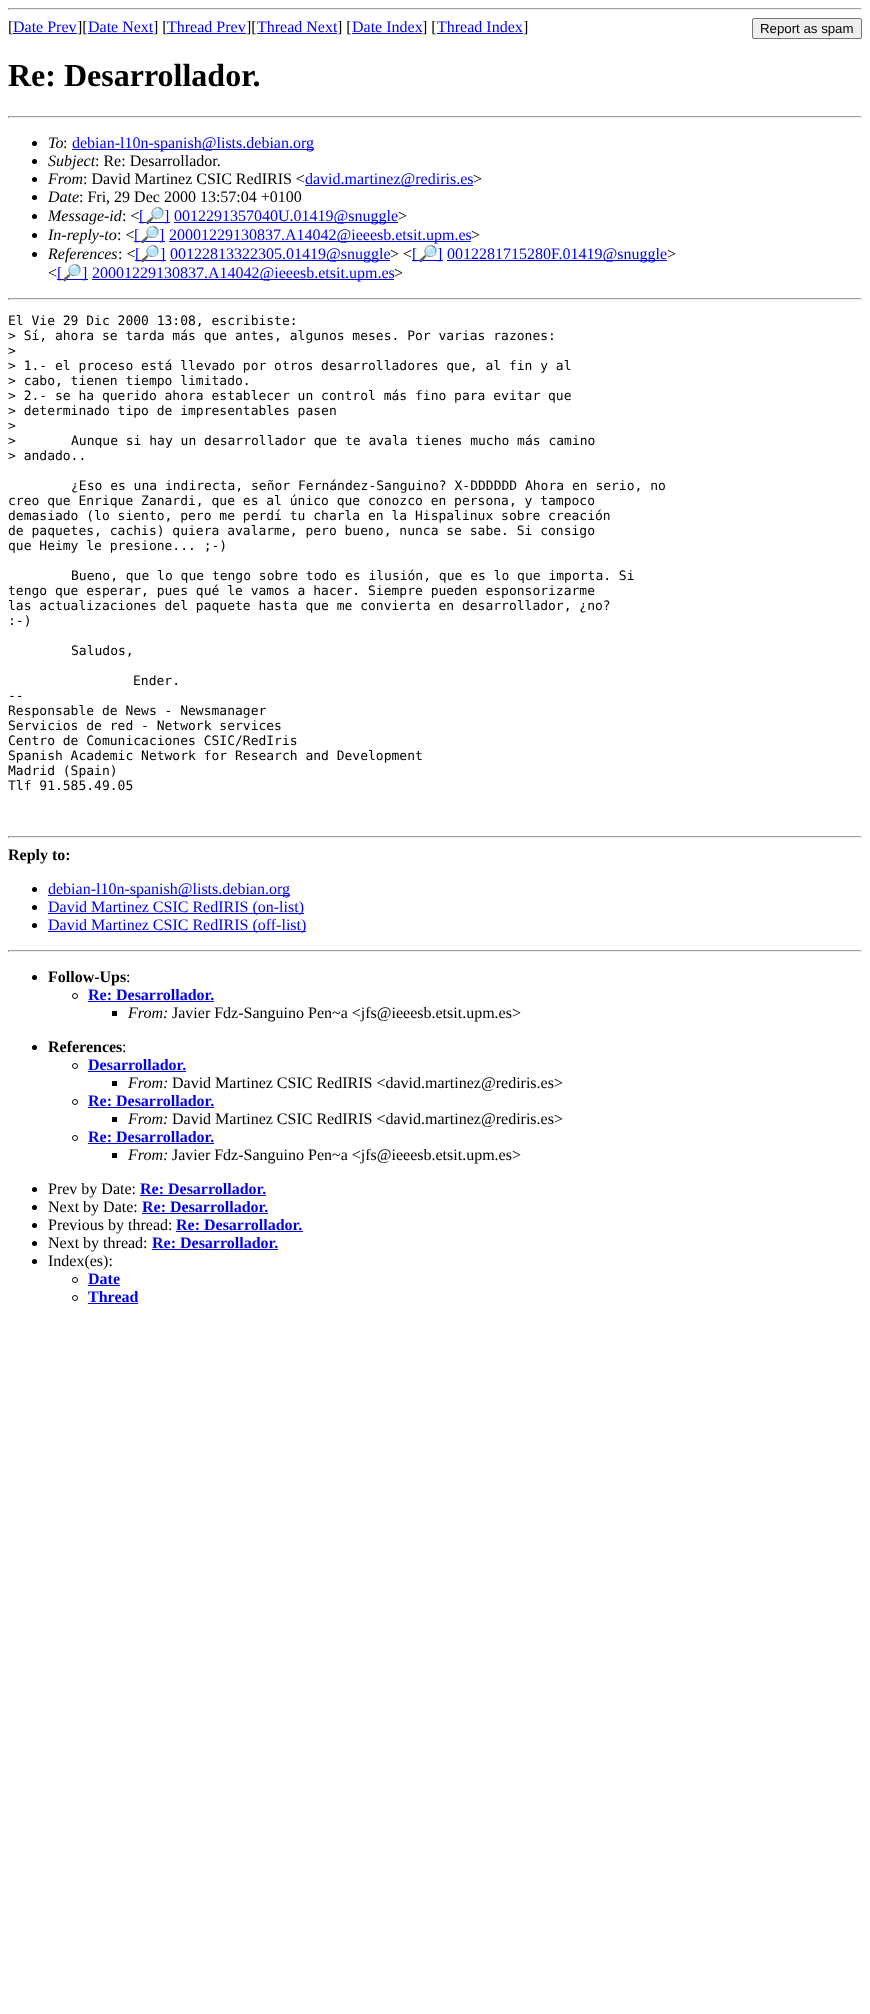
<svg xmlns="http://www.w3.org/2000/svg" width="870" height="2014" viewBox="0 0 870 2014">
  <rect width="100%" height="100%" fill="rgb(255,255,255)"/>
  <rect x="8" y="8" width="854" height="1" fill="rgb(159,159,159)"/>
  <rect x="861" y="8" width="1" height="2" fill="rgb(238,238,238)"/>
  <rect x="8" y="9" width="854" height="1" fill="rgb(238,238,238)"/>
  <rect x="8" y="8" width="1" height="2" fill="rgb(159,159,159)"/>
  <text x="8" y="32" font-family="Liberation Serif" font-size="16" fill="rgb(0,0,0)">[</text>
  <text x="13" y="32" font-family="Liberation Serif" font-size="16" fill="rgb(0,0,238)">Date Prev</text>
  <rect x="13" y="33" width="64" height="1" fill="rgb(0,0,238)"/>
  <text x="77" y="32" font-family="Liberation Serif" font-size="16" fill="rgb(0,0,0)">][</text>
  <text x="88" y="32" font-family="Liberation Serif" font-size="16" fill="rgb(0,0,238)">Date Next</text>
  <rect x="88" y="33" width="65" height="1" fill="rgb(0,0,238)"/>
  <text x="153" y="32" font-family="Liberation Serif" font-size="16" fill="rgb(0,0,0)">] [</text>
  <text x="167" y="32" font-family="Liberation Serif" font-size="16" fill="rgb(0,0,238)">Thread Prev</text>
  <rect x="167" y="33" width="79" height="1" fill="rgb(0,0,238)"/>
  <text x="246" y="32" font-family="Liberation Serif" font-size="16" fill="rgb(0,0,0)">][</text>
  <text x="257" y="32" font-family="Liberation Serif" font-size="16" fill="rgb(0,0,238)">Thread Next</text>
  <rect x="257" y="33" width="80" height="1" fill="rgb(0,0,238)"/>
  <text x="337" y="32" font-family="Liberation Serif" font-size="16" fill="rgb(0,0,0)">] [</text>
  <text x="352" y="32" font-family="Liberation Serif" font-size="16" fill="rgb(0,0,238)">Date Index</text>
  <rect x="352" y="33" width="70" height="1" fill="rgb(0,0,238)"/>
  <text x="422" y="32" font-family="Liberation Serif" font-size="16" fill="rgb(0,0,0)">] [</text>
  <text x="437" y="32" font-family="Liberation Serif" font-size="16" fill="rgb(0,0,238)">Thread Index</text>
  <rect x="437" y="33" width="86" height="1" fill="rgb(0,0,238)"/>
  <text x="523" y="32" font-family="Liberation Serif" font-size="16" fill="rgb(0,0,0)">]</text>
  <rect x="752.5" y="18.5" width="109" height="20" rx="1.5" fill="rgb(239,239,239)" stroke="rgb(118,118,118)"/>
  <text x="760" y="33" font-family="Liberation Sans" font-size="13.25" fill="rgb(0,0,0)">Report as spam</text>
  <text x="8" y="86" font-family="Liberation Serif" font-size="32" font-weight="bold" fill="rgb(0,0,0)">Re: Desarrollador.</text>
  <rect x="8" y="116" width="854" height="1" fill="rgb(159,159,159)"/>
  <rect x="861" y="116" width="1" height="2" fill="rgb(238,238,238)"/>
  <rect x="8" y="117" width="854" height="1" fill="rgb(238,238,238)"/>
  <rect x="8" y="116" width="1" height="2" fill="rgb(159,159,159)"/>
  <circle cx="34.5" cy="143.5" r="2.5" fill="rgb(0,0,0)"/>
  <text x="48" y="148" font-family="Liberation Serif" font-size="16" font-style="italic" fill="rgb(0,0,0)">To</text>
  <text x="63" y="148" font-family="Liberation Serif" font-size="16" fill="rgb(0,0,0)">:</text>
  <rect x="72" y="149" width="242" height="1" fill="rgb(0,0,238)"/>
  <text x="72" y="148" font-family="Liberation Serif" font-size="16" fill="rgb(0,0,238)">debian-l10n-spanish@lists.debian.org</text>
  <circle cx="34.5" cy="161.5" r="2.5" fill="rgb(0,0,0)"/>
  <text x="48" y="166" font-family="Liberation Serif" font-size="16" font-style="italic" fill="rgb(0,0,0)">Subject</text>
  <text x="95" y="166" font-family="Liberation Serif" font-size="16" fill="rgb(0,0,0)">: Re: Desarrollador.</text>
  <circle cx="34.5" cy="179.5" r="2.5" fill="rgb(0,0,0)"/>
  <text x="48" y="184" font-family="Liberation Serif" font-size="16" font-style="italic" fill="rgb(0,0,0)">From</text>
  <text x="83" y="184" font-family="Liberation Serif" font-size="16" fill="rgb(0,0,0)">: David Martinez CSIC RedIRIS &lt;</text>
  <rect x="305" y="185" width="168" height="1" fill="rgb(0,0,238)"/>
  <text x="305" y="184" font-family="Liberation Serif" font-size="16" fill="rgb(0,0,238)">david.martinez@rediris.es</text>
  <text x="473" y="184" font-family="Liberation Serif" font-size="16" fill="rgb(0,0,0)">&gt;</text>
  <circle cx="34.5" cy="197.5" r="2.5" fill="rgb(0,0,0)"/>
  <text x="48" y="202" font-family="Liberation Serif" font-size="16" font-style="italic" fill="rgb(0,0,0)">Date</text>
  <text x="79" y="202" font-family="Liberation Serif" font-size="16" fill="rgb(0,0,0)">: Fri, 29 Dec 2000 13:57:04 +0100</text>
  <circle cx="34.5" cy="216.5" r="2.5" fill="rgb(0,0,0)"/>
  <text x="48" y="221" font-family="Liberation Serif" font-size="16" font-style="italic" fill="rgb(0,0,0)">Message-id</text>
  <text x="122" y="221" font-family="Liberation Serif" font-size="16" fill="rgb(0,0,0)">: &lt;</text>
  <rect x="139" y="222" width="31" height="1" fill="rgb(0,0,238)"/>
  <text x="139" y="221" font-family="Liberation Serif" font-size="16" fill="rgb(0,0,238)">[</text>
  <text x="145" y="221" font-family="Noto Color Emoji" font-size="16" fill="rgb(0,0,238)">🔎</text>
  <text x="164" y="221" font-family="Liberation Serif" font-size="16" fill="rgb(0,0,238)">]</text>
  <rect x="174" y="222" width="224" height="1" fill="rgb(0,0,238)"/>
  <text x="174" y="221" font-family="Liberation Serif" font-size="16" fill="rgb(0,0,238)">0012291357040U.01419@snuggle</text>
  <text x="398" y="221" font-family="Liberation Serif" font-size="16" fill="rgb(0,0,0)">&gt;</text>
  <circle cx="34.5" cy="235.5" r="2.5" fill="rgb(0,0,0)"/>
  <text x="48" y="240" font-family="Liberation Serif" font-size="16" font-style="italic" fill="rgb(0,0,0)">In-reply-to</text>
  <text x="117" y="240" font-family="Liberation Serif" font-size="16" fill="rgb(0,0,0)">: &lt;</text>
  <rect x="134" y="241" width="31" height="1" fill="rgb(0,0,238)"/>
  <text x="134" y="240" font-family="Liberation Serif" font-size="16" fill="rgb(0,0,238)">[</text>
  <text x="140" y="240" font-family="Noto Color Emoji" font-size="16" fill="rgb(0,0,238)">🔎</text>
  <text x="159" y="240" font-family="Liberation Serif" font-size="16" fill="rgb(0,0,238)">]</text>
  <rect x="169" y="241" width="302" height="1" fill="rgb(0,0,238)"/>
  <text x="169" y="240" font-family="Liberation Serif" font-size="16" fill="rgb(0,0,238)">20001229130837.A14042@ieeesb.etsit.upm.es</text>
  <text x="471" y="240" font-family="Liberation Serif" font-size="16" fill="rgb(0,0,0)">&gt;</text>
  <circle cx="34.5" cy="254.5" r="2.5" fill="rgb(0,0,0)"/>
  <text x="48" y="259" font-family="Liberation Serif" font-size="16" font-style="italic" fill="rgb(0,0,0)">References</text>
  <text x="118" y="259" font-family="Liberation Serif" font-size="16" fill="rgb(0,0,0)">: &lt;</text>
  <rect x="135" y="260" width="31" height="1" fill="rgb(0,0,238)"/>
  <text x="135" y="259" font-family="Liberation Serif" font-size="16" fill="rgb(0,0,238)">[</text>
  <text x="140" y="259" font-family="Noto Color Emoji" font-size="16" fill="rgb(0,0,238)">🔎</text>
  <text x="160" y="259" font-family="Liberation Serif" font-size="16" fill="rgb(0,0,238)">]</text>
  <rect x="170" y="260" width="220" height="1" fill="rgb(0,0,238)"/>
  <text x="170" y="259" font-family="Liberation Serif" font-size="16" fill="rgb(0,0,238)">00122813322305.01419@snuggle</text>
  <text x="390" y="259" font-family="Liberation Serif" font-size="16" fill="rgb(0,0,0)">&gt; &lt;</text>
  <rect x="412" y="260" width="31" height="1" fill="rgb(0,0,238)"/>
  <text x="412" y="259" font-family="Liberation Serif" font-size="16" fill="rgb(0,0,238)">[</text>
  <text x="418" y="259" font-family="Noto Color Emoji" font-size="16" fill="rgb(0,0,238)">🔎</text>
  <text x="437" y="259" font-family="Liberation Serif" font-size="16" fill="rgb(0,0,238)">]</text>
  <rect x="447" y="260" width="220" height="1" fill="rgb(0,0,238)"/>
  <text x="447" y="259" font-family="Liberation Serif" font-size="16" fill="rgb(0,0,238)">0012281715280F.01419@snuggle</text>
  <g font-family="Liberation Serif" font-size="16" fill="rgb(0,0,0)">
    <text x="667" y="259">&gt;</text>
    <text x="48" y="278">&lt;</text>
  </g>
  <rect x="57" y="279" width="31" height="1" fill="rgb(0,0,238)"/>
  <text x="57" y="278" font-family="Liberation Serif" font-size="16" fill="rgb(0,0,238)">[</text>
  <text x="62" y="278" font-family="Noto Color Emoji" font-size="16" fill="rgb(0,0,238)">🔎</text>
  <text x="82" y="278" font-family="Liberation Serif" font-size="16" fill="rgb(0,0,238)">]</text>
  <rect x="92" y="279" width="302" height="1" fill="rgb(0,0,238)"/>
  <text x="92" y="278" font-family="Liberation Serif" font-size="16" fill="rgb(0,0,238)">20001229130837.A14042@ieeesb.etsit.upm.es</text>
  <text x="394" y="278" font-family="Liberation Serif" font-size="16" fill="rgb(0,0,0)">&gt;</text>
  <rect x="8" y="298" width="854" height="1" fill="rgb(159,159,159)"/>
  <rect x="861" y="298" width="1" height="2" fill="rgb(238,238,238)"/>
  <rect x="8" y="299" width="854" height="1" fill="rgb(238,238,238)"/>
  <rect x="8" y="298" width="1" height="2" fill="rgb(159,159,159)"/>
  <g font-family="DejaVu Sans Mono" font-size="13" fill="rgb(0,0,0)">
    <text>
      <tspan x="8" y="325">El Vie 29 Dic 2000 13:08, escribiste:</tspan>
      <tspan x="8" y="340">&gt; Sí, ahora se tarda más que antes, algunos meses. Por varias razones:</tspan>
      <tspan x="8" y="355">&gt;</tspan>
      <tspan x="8" y="370">&gt; 1.- el proceso está llevado por otros desarrolladores que, al fin y al</tspan>
      <tspan x="8" y="385">&gt; cabo, tienen tiempo limitado.</tspan>
      <tspan x="8" y="400">&gt; 2.- se ha querido ahora establecer un control más fino para evitar que</tspan>
      <tspan x="8" y="415">&gt; determinado tipo de impresentables pasen</tspan>
      <tspan x="8" y="430">&gt;</tspan>
      <tspan x="8" y="445">&gt;</tspan>
    </text>
    <text x="71" y="445">Aunque si hay un desarrollador que te avala tienes mucho más camino</text>
    <text x="8" y="460">&gt; andado..</text>
    <text x="71" y="490">¿Eso es una indirecta, señor Fernández-Sanguino? X-DDDDDD Ahora en serio, no</text>
    <text>
      <tspan x="8" y="505">creo que Enrique Zanardi, que es al único que conozco en persona, y tampoco</tspan>
      <tspan x="8" y="520">demasiado (lo siento, pero me perdí tu charla en la Hispalinux sobre creación</tspan>
      <tspan x="8" y="535">de paquetes, cachis) quiera avalarme, pero bueno, nunca se sabe. Si consigo</tspan>
      <tspan x="8" y="550">que Heimy le presione... ;-)</tspan>
    </text>
    <text x="71" y="580">Bueno, que lo que tengo sobre todo es ilusión, que es lo que importa. Si</text>
    <text>
      <tspan x="8" y="595">tengo que esperar, pues qué le vamos a hacer. Siempre pueden esponsorizarme</tspan>
      <tspan x="8" y="610">las actualizaciones del paquete hasta que me convierta en desarrollador, ¿no?</tspan>
      <tspan x="8" y="625">:-)</tspan>
    </text>
    <text x="71" y="655">Saludos,</text>
    <text x="133" y="685">Ender.</text>
    <text>
      <tspan x="8" y="700">--</tspan>
      <tspan x="8" y="715">Responsable de News - Newsmanager</tspan>
      <tspan x="8" y="730">Servicios de red - Network services</tspan>
      <tspan x="8" y="745">Centro de Comunicaciones CSIC/RedIris</tspan>
      <tspan x="8" y="760">Spanish Academic Network for Research and Development</tspan>
      <tspan x="8" y="775">Madrid (Spain)</tspan>
      <tspan x="8" y="790">Tlf 91.585.49.05</tspan>
    </text>
  </g>
  <rect x="8" y="836" width="854" height="1" fill="rgb(159,159,159)"/>
  <rect x="861" y="836" width="1" height="2" fill="rgb(238,238,238)"/>
  <rect x="8" y="837" width="854" height="1" fill="rgb(238,238,238)"/>
  <rect x="8" y="836" width="1" height="2" fill="rgb(159,159,159)"/>
  <text x="8" y="860" font-family="Liberation Serif" font-size="16" font-weight="bold" fill="rgb(0,0,0)">Reply to:</text>
  <circle cx="34.5" cy="889.5" r="2.5" fill="rgb(0,0,0)"/>
  <rect x="48" y="895" width="242" height="1" fill="rgb(0,0,238)"/>
  <text x="48" y="894" font-family="Liberation Serif" font-size="16" fill="rgb(0,0,238)">debian-l10n-spanish@lists.debian.org</text>
  <circle cx="34.5" cy="907.5" r="2.5" fill="rgb(0,0,0)"/>
  <rect x="48" y="913" width="256" height="1" fill="rgb(0,0,238)"/>
  <text x="48" y="912" font-family="Liberation Serif" font-size="16" fill="rgb(0,0,238)">David Martinez CSIC RedIRIS (on-list)</text>
  <circle cx="34.5" cy="925.5" r="2.5" fill="rgb(0,0,0)"/>
  <rect x="48" y="931" width="258" height="1" fill="rgb(0,0,238)"/>
  <text x="48" y="930" font-family="Liberation Serif" font-size="16" fill="rgb(0,0,238)">David Martinez CSIC RedIRIS (off-list)</text>
  <rect x="8" y="950" width="854" height="1" fill="rgb(159,159,159)"/>
  <rect x="861" y="950" width="1" height="2" fill="rgb(238,238,238)"/>
  <rect x="8" y="951" width="854" height="1" fill="rgb(238,238,238)"/>
  <rect x="8" y="950" width="1" height="2" fill="rgb(159,159,159)"/>
  <circle cx="34.5" cy="977.5" r="2.5" fill="rgb(0,0,0)"/>
  <text x="48" y="982" font-family="Liberation Serif" font-size="16" font-weight="bold" fill="rgb(0,0,0)">Follow-Ups</text>
  <text x="126" y="982" font-family="Liberation Serif" font-size="16" fill="rgb(0,0,0)">:</text>
  <circle cx="75" cy="996" r="2.5" fill="none" stroke="rgb(0,0,0)"/>
  <text x="88" y="1000" font-family="Liberation Serif" font-size="16" font-weight="bold" fill="rgb(0,0,238)">Re: Desarrollador.</text>
  <rect x="88" y="1001" width="126" height="1" fill="rgb(0,0,238)"/>
  <rect x="112" y="1011" width="5" height="5" fill="rgb(0,0,0)"/>
  <text x="128" y="1018" font-family="Liberation Serif" font-size="16" font-style="italic" fill="rgb(0,0,0)">From:</text>
  <text x="172" y="1018" font-family="Liberation Serif" font-size="16" fill="rgb(0,0,0)">Javier Fdz-Sanguino Pen~a &lt;jfs@ieeesb.etsit.upm.es&gt;</text>
  <circle cx="34.5" cy="1047.5" r="2.5" fill="rgb(0,0,0)"/>
  <text x="48" y="1052" font-family="Liberation Serif" font-size="16" font-weight="bold" fill="rgb(0,0,0)">References</text>
  <text x="122" y="1052" font-family="Liberation Serif" font-size="16" fill="rgb(0,0,0)">:</text>
  <circle cx="75" cy="1066" r="2.5" fill="none" stroke="rgb(0,0,0)"/>
  <text x="88" y="1070" font-family="Liberation Serif" font-size="16" font-weight="bold" fill="rgb(0,0,238)">Desarrollador.</text>
  <rect x="88" y="1071" width="98" height="1" fill="rgb(0,0,238)"/>
  <rect x="112" y="1081" width="5" height="5" fill="rgb(0,0,0)"/>
  <text x="128" y="1088" font-family="Liberation Serif" font-size="16" font-style="italic" fill="rgb(0,0,0)">From:</text>
  <text x="172" y="1088" font-family="Liberation Serif" font-size="16" fill="rgb(0,0,0)">David Martinez CSIC RedIRIS &lt;david.martinez@rediris.es&gt;</text>
  <circle cx="75" cy="1102" r="2.5" fill="none" stroke="rgb(0,0,0)"/>
  <text x="88" y="1106" font-family="Liberation Serif" font-size="16" font-weight="bold" fill="rgb(0,0,238)">Re: Desarrollador.</text>
  <rect x="88" y="1107" width="126" height="1" fill="rgb(0,0,238)"/>
  <rect x="112" y="1117" width="5" height="5" fill="rgb(0,0,0)"/>
  <text x="128" y="1124" font-family="Liberation Serif" font-size="16" font-style="italic" fill="rgb(0,0,0)">From:</text>
  <text x="172" y="1124" font-family="Liberation Serif" font-size="16" fill="rgb(0,0,0)">David Martinez CSIC RedIRIS &lt;david.martinez@rediris.es&gt;</text>
  <circle cx="75" cy="1138" r="2.5" fill="none" stroke="rgb(0,0,0)"/>
  <text x="88" y="1142" font-family="Liberation Serif" font-size="16" font-weight="bold" fill="rgb(0,0,238)">Re: Desarrollador.</text>
  <rect x="88" y="1143" width="126" height="1" fill="rgb(0,0,238)"/>
  <rect x="112" y="1153" width="5" height="5" fill="rgb(0,0,0)"/>
  <text x="128" y="1160" font-family="Liberation Serif" font-size="16" font-style="italic" fill="rgb(0,0,0)">From:</text>
  <text x="172" y="1160" font-family="Liberation Serif" font-size="16" fill="rgb(0,0,0)">Javier Fdz-Sanguino Pen~a &lt;jfs@ieeesb.etsit.upm.es&gt;</text>
  <circle cx="34.5" cy="1189.5" r="2.5" fill="rgb(0,0,0)"/>
  <text x="48" y="1194" font-family="Liberation Serif" font-size="16" fill="rgb(0,0,0)">Prev by Date:</text>
  <text x="140" y="1194" font-family="Liberation Serif" font-size="16" font-weight="bold" fill="rgb(0,0,238)">Re: Desarrollador.</text>
  <rect x="140" y="1195" width="126" height="1" fill="rgb(0,0,238)"/>
  <circle cx="34.5" cy="1207.5" r="2.5" fill="rgb(0,0,0)"/>
  <text x="48" y="1212" font-family="Liberation Serif" font-size="16" fill="rgb(0,0,0)">Next by Date:</text>
  <text x="142" y="1212" font-family="Liberation Serif" font-size="16" font-weight="bold" fill="rgb(0,0,238)">Re: Desarrollador.</text>
  <rect x="142" y="1213" width="126" height="1" fill="rgb(0,0,238)"/>
  <circle cx="34.5" cy="1225.5" r="2.5" fill="rgb(0,0,0)"/>
  <text x="48" y="1230" font-family="Liberation Serif" font-size="16" fill="rgb(0,0,0)">Previous by thread:</text>
  <text x="176" y="1230" font-family="Liberation Serif" font-size="16" font-weight="bold" fill="rgb(0,0,238)">Re: Desarrollador.</text>
  <rect x="176" y="1231" width="127" height="1" fill="rgb(0,0,238)"/>
  <circle cx="34.5" cy="1243.5" r="2.5" fill="rgb(0,0,0)"/>
  <text x="48" y="1248" font-family="Liberation Serif" font-size="16" fill="rgb(0,0,0)">Next by thread:</text>
  <text x="152" y="1248" font-family="Liberation Serif" font-size="16" font-weight="bold" fill="rgb(0,0,238)">Re: Desarrollador.</text>
  <rect x="152" y="1249" width="126" height="1" fill="rgb(0,0,238)"/>
  <circle cx="34.5" cy="1261.5" r="2.5" fill="rgb(0,0,0)"/>
  <text x="48" y="1266" font-family="Liberation Serif" font-size="16" fill="rgb(0,0,0)">Index(es):</text>
  <circle cx="75" cy="1280" r="2.5" fill="none" stroke="rgb(0,0,0)"/>
  <text x="88" y="1284" font-family="Liberation Serif" font-size="16" font-weight="bold" fill="rgb(0,0,238)">Date</text>
  <rect x="88" y="1285" width="32" height="1" fill="rgb(0,0,238)"/>
  <circle cx="75" cy="1298" r="2.5" fill="none" stroke="rgb(0,0,0)"/>
  <text x="88" y="1302" font-family="Liberation Serif" font-size="16" font-weight="bold" fill="rgb(0,0,238)">Thread</text>
  <rect x="88" y="1303" width="50" height="1" fill="rgb(0,0,238)"/>
</svg>
